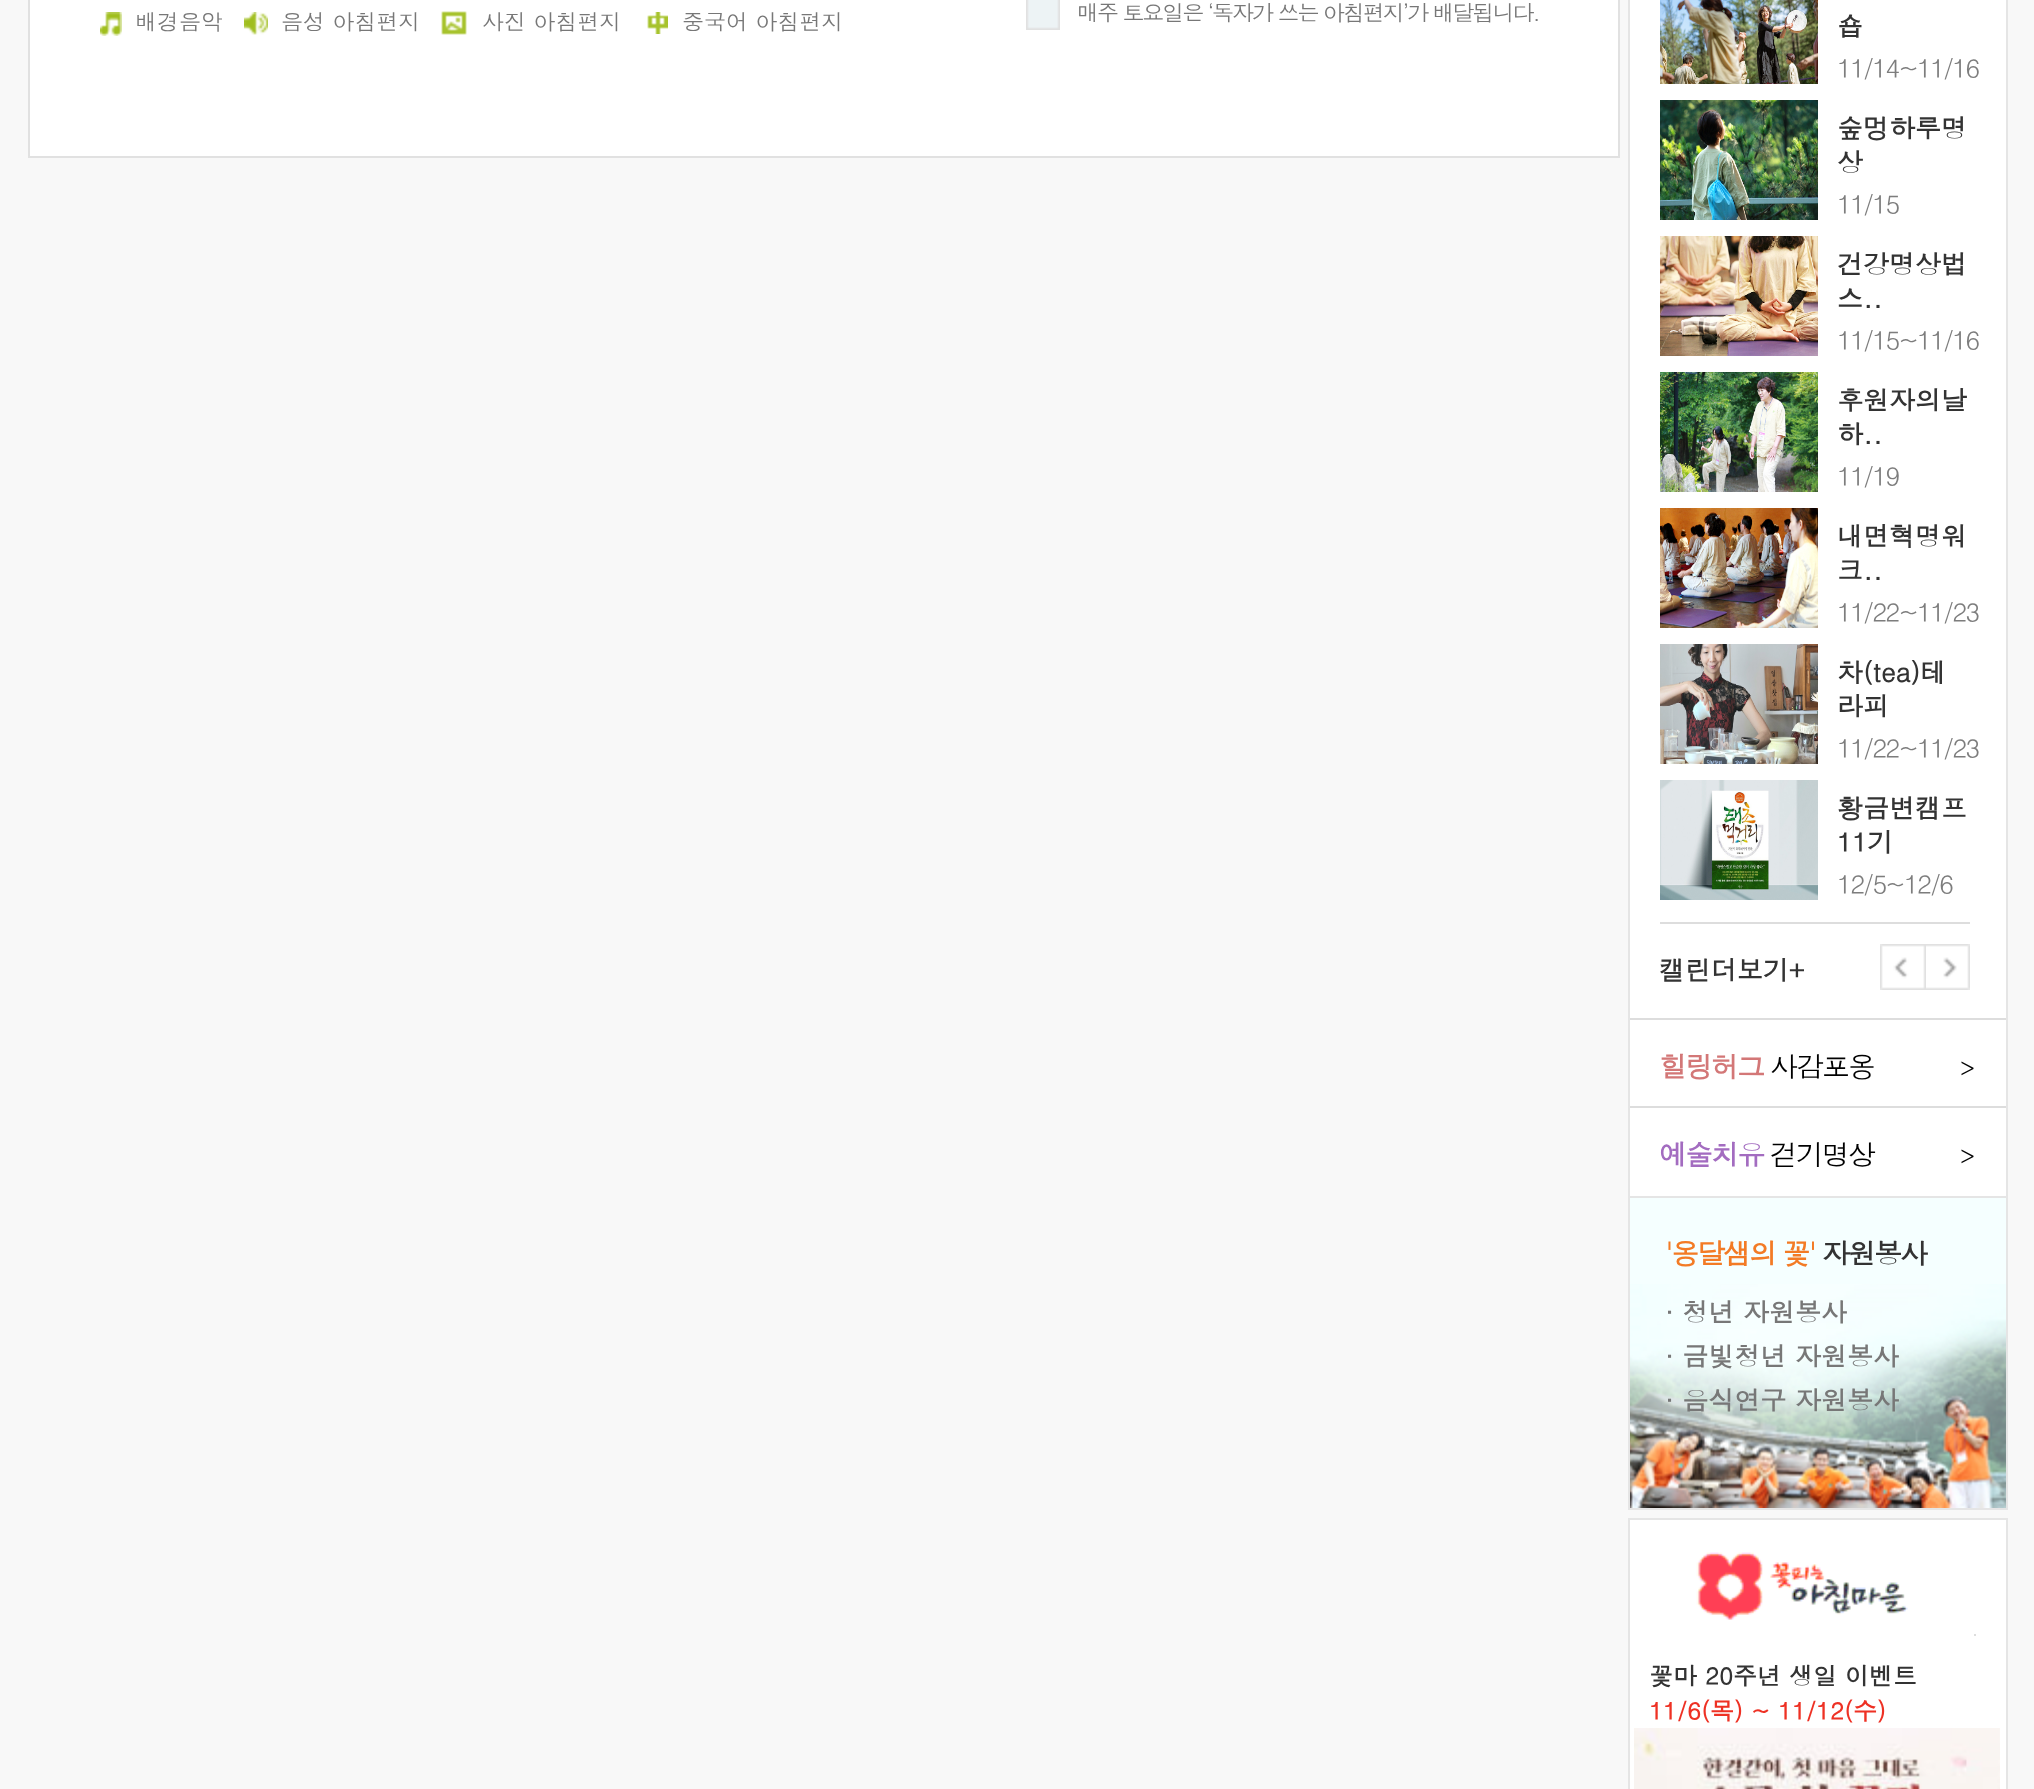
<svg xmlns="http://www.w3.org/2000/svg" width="2034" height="1789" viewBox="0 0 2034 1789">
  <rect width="100%" height="100%" fill="rgb(248,248,248)"/>
  <rect x="29" y="-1" width="1590" height="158" fill="rgb(255,255,255)" stroke="rgb(225,225,225)" stroke-width="2"/>
  <image x="100" y="12" width="22" height="24" href="pic1.png"/>
  <text x="135" y="30" font-family="Dotum" font-size="22" fill="rgb(119,119,119)">배경음악</text>
  <image x="244" y="12" width="24" height="23" href="pic2.png"/>
  <text x="281" y="30" font-family="Dotum" font-size="22" fill="rgb(119,119,119)">음성 아침편지</text>
  <image x="441" y="11" width="26" height="24" href="pic3.png"/>
  <text x="482" y="30" font-family="Dotum" font-size="22" fill="rgb(119,119,119)">사진 아침편지</text>
  <image x="647" y="12" width="21" height="22" href="pic4.png"/>
  <text x="682" y="30" font-family="Dotum" font-size="22" fill="rgb(119,119,119)">중국어 아침편지</text>
  <image x="1026" y="0" width="34" height="30" href="pic5.png"/>
  <text x="1077" y="21" font-family="Dotum" font-size="22" letter-spacing="-2" fill="rgb(119,119,119)">매주 토요일은 ‘독자가 쓰는 아침편지’가 배달됩니다.</text>
  <rect x="1629" y="-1" width="378" height="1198" fill="rgb(255,255,255)" stroke="rgb(229,229,229)" stroke-width="2"/>
  <image x="1660" y="0" width="158" height="84" href="pic6.png"/>
  <text x="1837" y="36" font-family="Dotum" font-size="26" font-weight="bold" fill="rgb(51,51,51)">숍</text>
  <text x="1837" y="78" font-family="Dotum" font-size="26" letter-spacing="-2" fill="rgb(125,125,125)">11/14~11/16</text>
  <image x="1660" y="100" width="158" height="120" href="pic7.png"/>
  <g font-family="Dotum" font-size="26" font-weight="bold" fill="rgb(51,51,51)">
    <text>
      <tspan x="1837" y="138">숲멍하루명</tspan>
      <tspan x="1837" y="172">상</tspan>
    </text>
  </g>
  <text x="1837" y="214" font-family="Dotum" font-size="26" letter-spacing="-2" fill="rgb(125,125,125)">11/15</text>
  <image x="1660" y="236" width="158" height="120" href="pic8.png"/>
  <g font-family="Dotum" font-size="26" font-weight="bold" fill="rgb(51,51,51)">
    <text>
      <tspan x="1837" y="274">건강명상법</tspan>
      <tspan x="1837" y="308">스..</tspan>
    </text>
  </g>
  <text x="1837" y="350" font-family="Dotum" font-size="26" letter-spacing="-2" fill="rgb(125,125,125)">11/15~11/16</text>
  <image x="1660" y="372" width="158" height="120" href="pic9.png"/>
  <g font-family="Dotum" font-size="26" font-weight="bold" fill="rgb(51,51,51)">
    <text>
      <tspan x="1837" y="410">후원자의날</tspan>
      <tspan x="1837" y="444">하..</tspan>
    </text>
  </g>
  <text x="1837" y="486" font-family="Dotum" font-size="26" letter-spacing="-2" fill="rgb(125,125,125)">11/19</text>
  <image x="1660" y="508" width="158" height="120" href="pic10.png"/>
  <g font-family="Dotum" font-size="26" font-weight="bold" fill="rgb(51,51,51)">
    <text>
      <tspan x="1837" y="546">내면혁명워</tspan>
      <tspan x="1837" y="580">크..</tspan>
    </text>
  </g>
  <text x="1837" y="622" font-family="Dotum" font-size="26" letter-spacing="-2" fill="rgb(125,125,125)">11/22~11/23</text>
  <image x="1660" y="644" width="158" height="120" href="pic11.png"/>
  <g font-family="Dotum" font-size="26" font-weight="bold" fill="rgb(51,51,51)">
    <text>
      <tspan x="1837" y="682">차(tea)테</tspan>
      <tspan x="1837" y="716">라피</tspan>
    </text>
  </g>
  <text x="1837" y="758" font-family="Dotum" font-size="26" letter-spacing="-2" fill="rgb(125,125,125)">11/22~11/23</text>
  <image x="1660" y="780" width="158" height="120" href="pic12.png"/>
  <g font-family="Dotum" font-size="26" font-weight="bold" fill="rgb(51,51,51)">
    <text>
      <tspan x="1837" y="818">황금변캠프</tspan>
      <tspan x="1837" y="852">11기</tspan>
    </text>
  </g>
  <text x="1837" y="894" font-family="Dotum" font-size="26" letter-spacing="-2" fill="rgb(125,125,125)">12/5~12/6</text>
  <rect x="1660" y="922" width="310" height="2" fill="rgb(221,221,221)"/>
  <text x="1659" y="980" font-family="Dotum" font-size="26" font-weight="bold" fill="rgb(51,51,51)">캘린더보기+</text>
  <image x="1880" y="944" width="46" height="46" href="pic13.png"/>
  <image x="1926" y="944" width="44" height="46" href="pic14.png"/>
  <rect x="1630" y="1018" width="376" height="2" fill="rgb(221,221,221)"/>
  <text x="1659" y="1077" font-family="Dotum" font-size="28" font-weight="bold" letter-spacing="-2" fill="rgb(211,119,119)">힐링허그</text>
  <text x="1770" y="1077" font-family="Dotum" font-size="28" letter-spacing="-2" fill="rgb(0,0,0)">사감포옹</text>
  <text x="1960" y="1077" font-family="Dotum" font-size="24" fill="rgb(0,0,0)">&gt;</text>
  <rect x="1630" y="1106" width="376" height="2" fill="rgb(221,221,221)"/>
  <text x="1659" y="1165" font-family="Dotum" font-size="28" font-weight="bold" letter-spacing="-2" fill="rgb(163,108,192)">예술치유</text>
  <text x="1770" y="1165" font-family="Dotum" font-size="28" letter-spacing="-2" fill="rgb(0,0,0)">걷기명상</text>
  <text x="1960" y="1165" font-family="Dotum" font-size="24" fill="rgb(0,0,0)">&gt;</text>
  <image x="1630" y="1284" width="376" height="224" href="pic15.png"/>
  <rect x="2006" y="1198" width="2" height="312" fill="rgb(229,229,229)"/>
  <rect x="1628" y="1508" width="380" height="2" fill="rgb(229,229,229)"/>
  <rect x="1628" y="1198" width="2" height="312" fill="rgb(229,229,229)"/>
  <rect x="1630" y="1198" width="376" height="86" fill="rgb(245,255,255)"/>
  <text x="1665" y="1264" font-family="Dotum" font-size="28" font-weight="bold" letter-spacing="-2" fill="rgb(243,123,37)">'옹달샘의 꽃'</text>
  <text x="1822" y="1264" font-family="Dotum" font-size="28" font-weight="bold" letter-spacing="-2" fill="rgb(51,51,51)">자원봉사</text>
  <g font-family="Dotum" font-size="26" font-weight="bold" fill="rgb(119,119,119)">
    <text>
      <tspan x="1665" y="1322">· 청년 자원봉사</tspan>
      <tspan x="1665" y="1366">· 금빛청년 자원봉사</tspan>
      <tspan x="1665" y="1410">· 음식연구 자원봉사</tspan>
    </text>
  </g>
  <rect x="1629" y="1519" width="378" height="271" fill="rgb(255,255,255)" stroke="rgb(229,229,229)" stroke-width="2"/>
  <rect x="1974" y="1634" width="2" height="2" fill="rgb(221,221,221)"/>
  <image x="1660" y="1552" width="314" height="84" href="pic16.png"/>
  <text x="1649" y="1685" font-family="Dotum" font-size="24" font-weight="bold" fill="rgb(51,51,51)">꽃마 20주년 생일 이벤트</text>
  <text x="1649" y="1720" font-family="Dotum" font-size="24" font-weight="bold" fill="rgb(238,49,36)">11/6(목) ~ 11/12(수)</text>
  <image x="1634" y="1728" width="366" height="61" href="pic17.png"/>
</svg>
